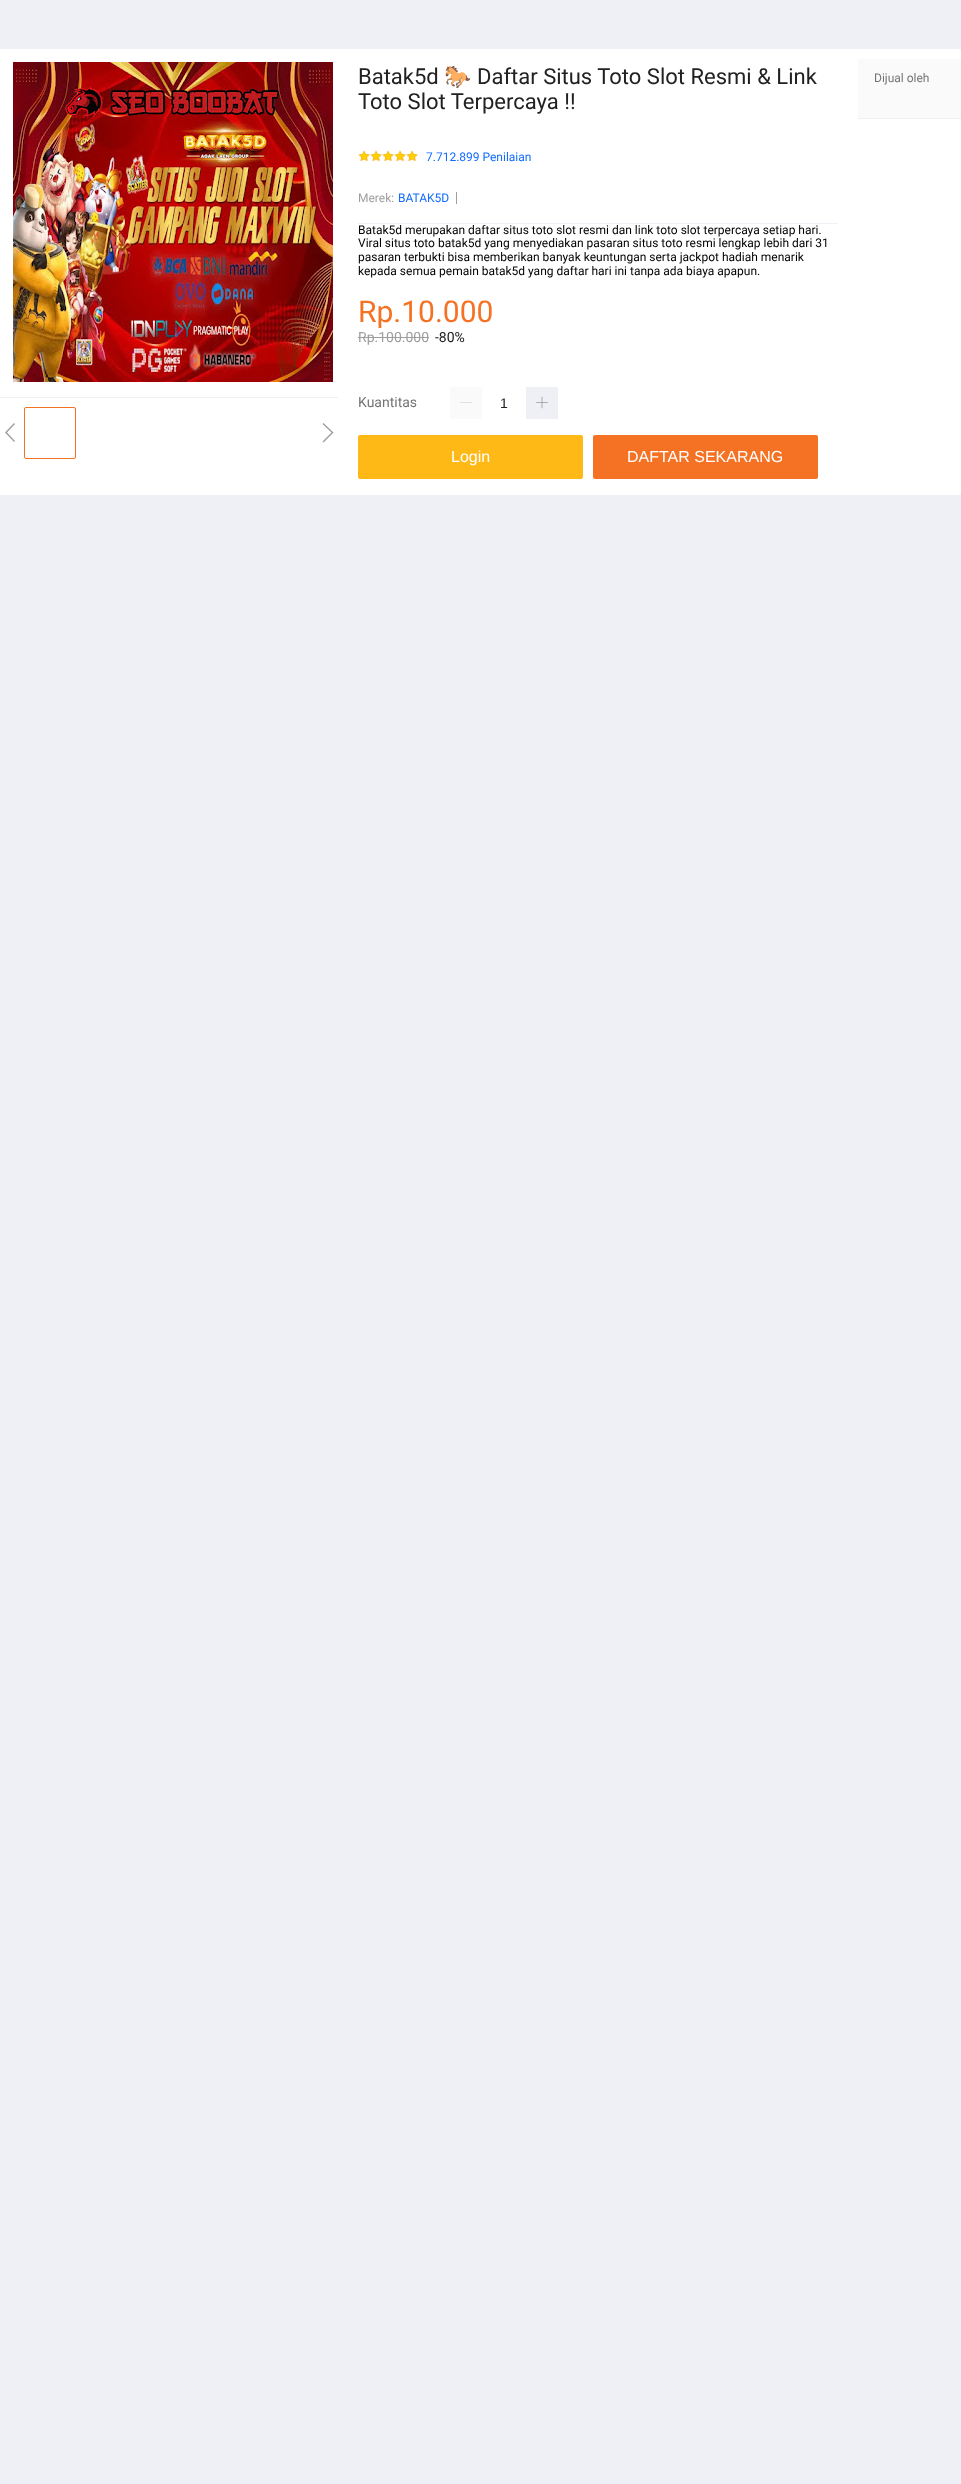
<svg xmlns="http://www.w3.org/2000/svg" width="961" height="2484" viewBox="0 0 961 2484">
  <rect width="100%" height="100%" fill="rgb(239,240,245)"/>
  <rect x="0" y="49" width="961" height="446" fill="rgb(255,255,255)"/>
  <rect x="0" y="397" width="338" height="1" fill="rgb(239,240,245)"/>
  <image x="13" y="62" width="320" height="320" href="pic1.png"/>
  <path d="M15 441L7 432.5L15 424L14 423L5 432.5L14 442Z" fill="rgb(158,158,158)"/>
  <rect x="24.5" y="407.5" width="51" height="51" rx="1.5" fill="none" stroke="rgb(245,114,36)"/>
  <path d="M323.5 442.5L322.5 441.5L331.5 432.5L322.5 424L323.5 423L333.5 432.5Z" fill="rgb(158,158,158)"/>
  <text x="358" y="84" font-family="Roboto" font-size="22" fill="rgb(33,33,33)">Batak5d</text>
  <text x="444" y="84" font-family="Noto Color Emoji" font-size="22" fill="rgb(33,33,33)">🐎</text>
  <g font-family="Roboto" font-size="22" fill="rgb(33,33,33)">
    <text x="477" y="84">Daftar Situs Toto Slot Resmi &amp; Link</text>
    <text x="358" y="109">Toto Slot Terpercaya !!</text>
  </g>
  <image x="358" y="150" width="12" height="12" href="pic2.png"/>
  <image x="370" y="150" width="12" height="12" href="pic2.png"/>
  <image x="382" y="150" width="12" height="12" href="pic2.png"/>
  <image x="394" y="150" width="12" height="12" href="pic2.png"/>
  <image x="406" y="150" width="12" height="12" href="pic2.png"/>
  <text x="426" y="161" font-family="Roboto" font-size="12" fill="rgb(19,108,255)">7.712.899 Penilaian</text>
  <rect x="358" y="223" width="480" height="1" fill="rgb(239,240,245)"/>
  <text x="358" y="202" font-family="Roboto" font-size="12" fill="rgb(158,158,158)">Merek:</text>
  <text x="398" y="202" font-family="Roboto" font-size="12" fill="rgb(19,108,255)">BATAK5D</text>
  <rect x="456" y="192" width="1" height="12" fill="rgb(158,158,158)"/>
  <g font-family="Roboto" font-size="12" fill="rgb(0,0,0)">
    <text>
      <tspan x="358" y="234">Batak5d merupakan daftar situs toto slot resmi dan link toto slot terpercaya setiap hari.</tspan>
      <tspan x="358" y="247">Viral situs toto batak5d yang menyediakan pasaran situs toto resmi lengkap lebih dari 31</tspan>
      <tspan x="358" y="261">pasaran terbukti bisa memberikan banyak keuntungan serta jackpot hadiah menarik</tspan>
      <tspan x="358" y="275">kepada semua pemain batak5d yang daftar hari ini tanpa ada biaya apapun.</tspan>
    </text>
  </g>
  <text x="358" y="322" font-family="Roboto" font-size="30" fill="rgb(245,114,36)">Rp.10.000</text>
  <text x="358" y="342" font-family="Roboto" font-size="14" fill="rgb(158,158,158)">Rp.100.000</text>
  <rect x="358" y="337" width="71" height="1" fill="rgb(158,158,158)"/>
  <text x="435" y="342" font-family="Roboto" font-size="14" fill="rgb(33,33,33)">-80%</text>
  <text x="358" y="407" font-family="Roboto" font-size="14" fill="rgb(117,117,117)">Kuantitas</text>
  <rect x="450" y="387" width="32" height="32" fill="rgb(250,250,250)"/>
  <image x="460" y="402" width="12" height="1" href="pic3.png"/>
  <rect x="526" y="387" width="32" height="32" fill="rgb(239,240,245)"/>
  <image x="536" y="396" width="12" height="13" href="pic4.png"/>
  <text x="500" y="408" font-family="Liberation Sans" font-size="14" fill="rgb(33,33,33)">1</text>
  <rect x="358" y="435" width="225" height="44" rx="2" fill="rgb(255,185,22)"/>
  <text x="451" y="462" font-family="Liberation Sans" font-size="16" fill="rgb(255,255,255)">Login</text>
  <rect x="593" y="435" width="225" height="44" rx="2" fill="rgb(245,114,36)"/>
  <text x="627" y="462" font-family="Liberation Sans" font-size="16" fill="rgb(255,255,255)">DAFTAR SEKARANG</text>
  <rect x="858" y="59" width="103" height="59" fill="rgb(250,250,250)"/>
  <text x="874" y="82" font-family="Roboto" font-size="12" fill="rgb(117,117,117)">Dijual oleh</text>
  <rect x="858" y="118" width="103" height="1" fill="rgb(239,240,245)"/>
</svg>
